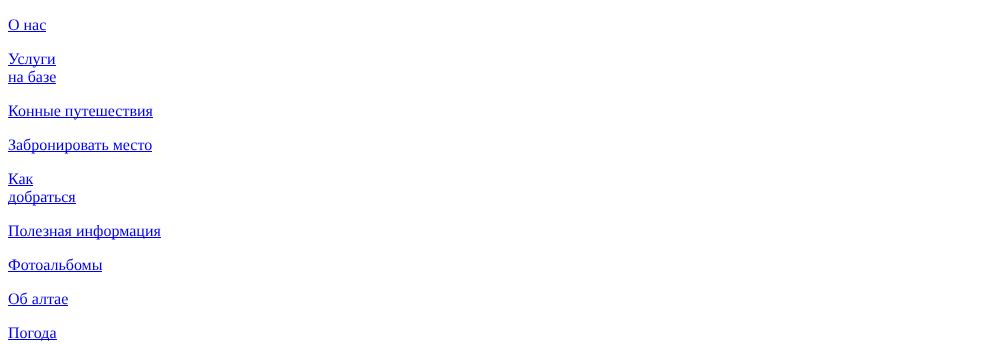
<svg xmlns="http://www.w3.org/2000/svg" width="1001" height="344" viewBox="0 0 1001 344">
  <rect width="100%" height="100%" fill="rgb(255,255,255)"/>
  <text x="8" y="30" font-family="Liberation Serif" font-size="16" fill="rgb(0,0,238)">О нас</text>
  <rect x="8" y="31" width="38" height="1" fill="rgb(0,0,238)"/>
  <rect x="8" y="65" width="48" height="1" fill="rgb(0,0,238)"/>
  <g font-family="Liberation Serif" font-size="16" fill="rgb(0,0,238)">
    <text>
      <tspan x="8" y="64">Услуги</tspan>
      <tspan x="8" y="82">на базе</tspan>
    </text>
  </g>
  <rect x="8" y="83" width="48" height="1" fill="rgb(0,0,238)"/>
  <rect x="8" y="117" width="145" height="1" fill="rgb(0,0,238)"/>
  <text x="8" y="116" font-family="Liberation Serif" font-size="16" fill="rgb(0,0,238)">Конные путешествия</text>
  <rect x="8" y="151" width="144" height="1" fill="rgb(0,0,238)"/>
  <g font-family="Liberation Serif" font-size="16" fill="rgb(0,0,238)">
    <text x="8" y="150">Забронировать место</text>
    <text x="8" y="184">Как</text>
  </g>
  <rect x="8" y="185" width="25" height="1" fill="rgb(0,0,238)"/>
  <rect x="8" y="203" width="68" height="1" fill="rgb(0,0,238)"/>
  <text x="8" y="202" font-family="Liberation Serif" font-size="16" fill="rgb(0,0,238)">добраться</text>
  <rect x="8" y="237" width="153" height="1" fill="rgb(0,0,238)"/>
  <g font-family="Liberation Serif" font-size="16" fill="rgb(0,0,238)">
    <text x="8" y="236">Полезная информация</text>
    <text x="8" y="270">Фотоальбомы</text>
  </g>
  <rect x="8" y="271" width="94" height="1" fill="rgb(0,0,238)"/>
  <text x="8" y="304" font-family="Liberation Serif" font-size="16" fill="rgb(0,0,238)">Об алтае</text>
  <rect x="8" y="305" width="60" height="1" fill="rgb(0,0,238)"/>
  <rect x="8" y="339" width="49" height="1" fill="rgb(0,0,238)"/>
  <text x="8" y="338" font-family="Liberation Serif" font-size="16" fill="rgb(0,0,238)">Погода</text>
</svg>
